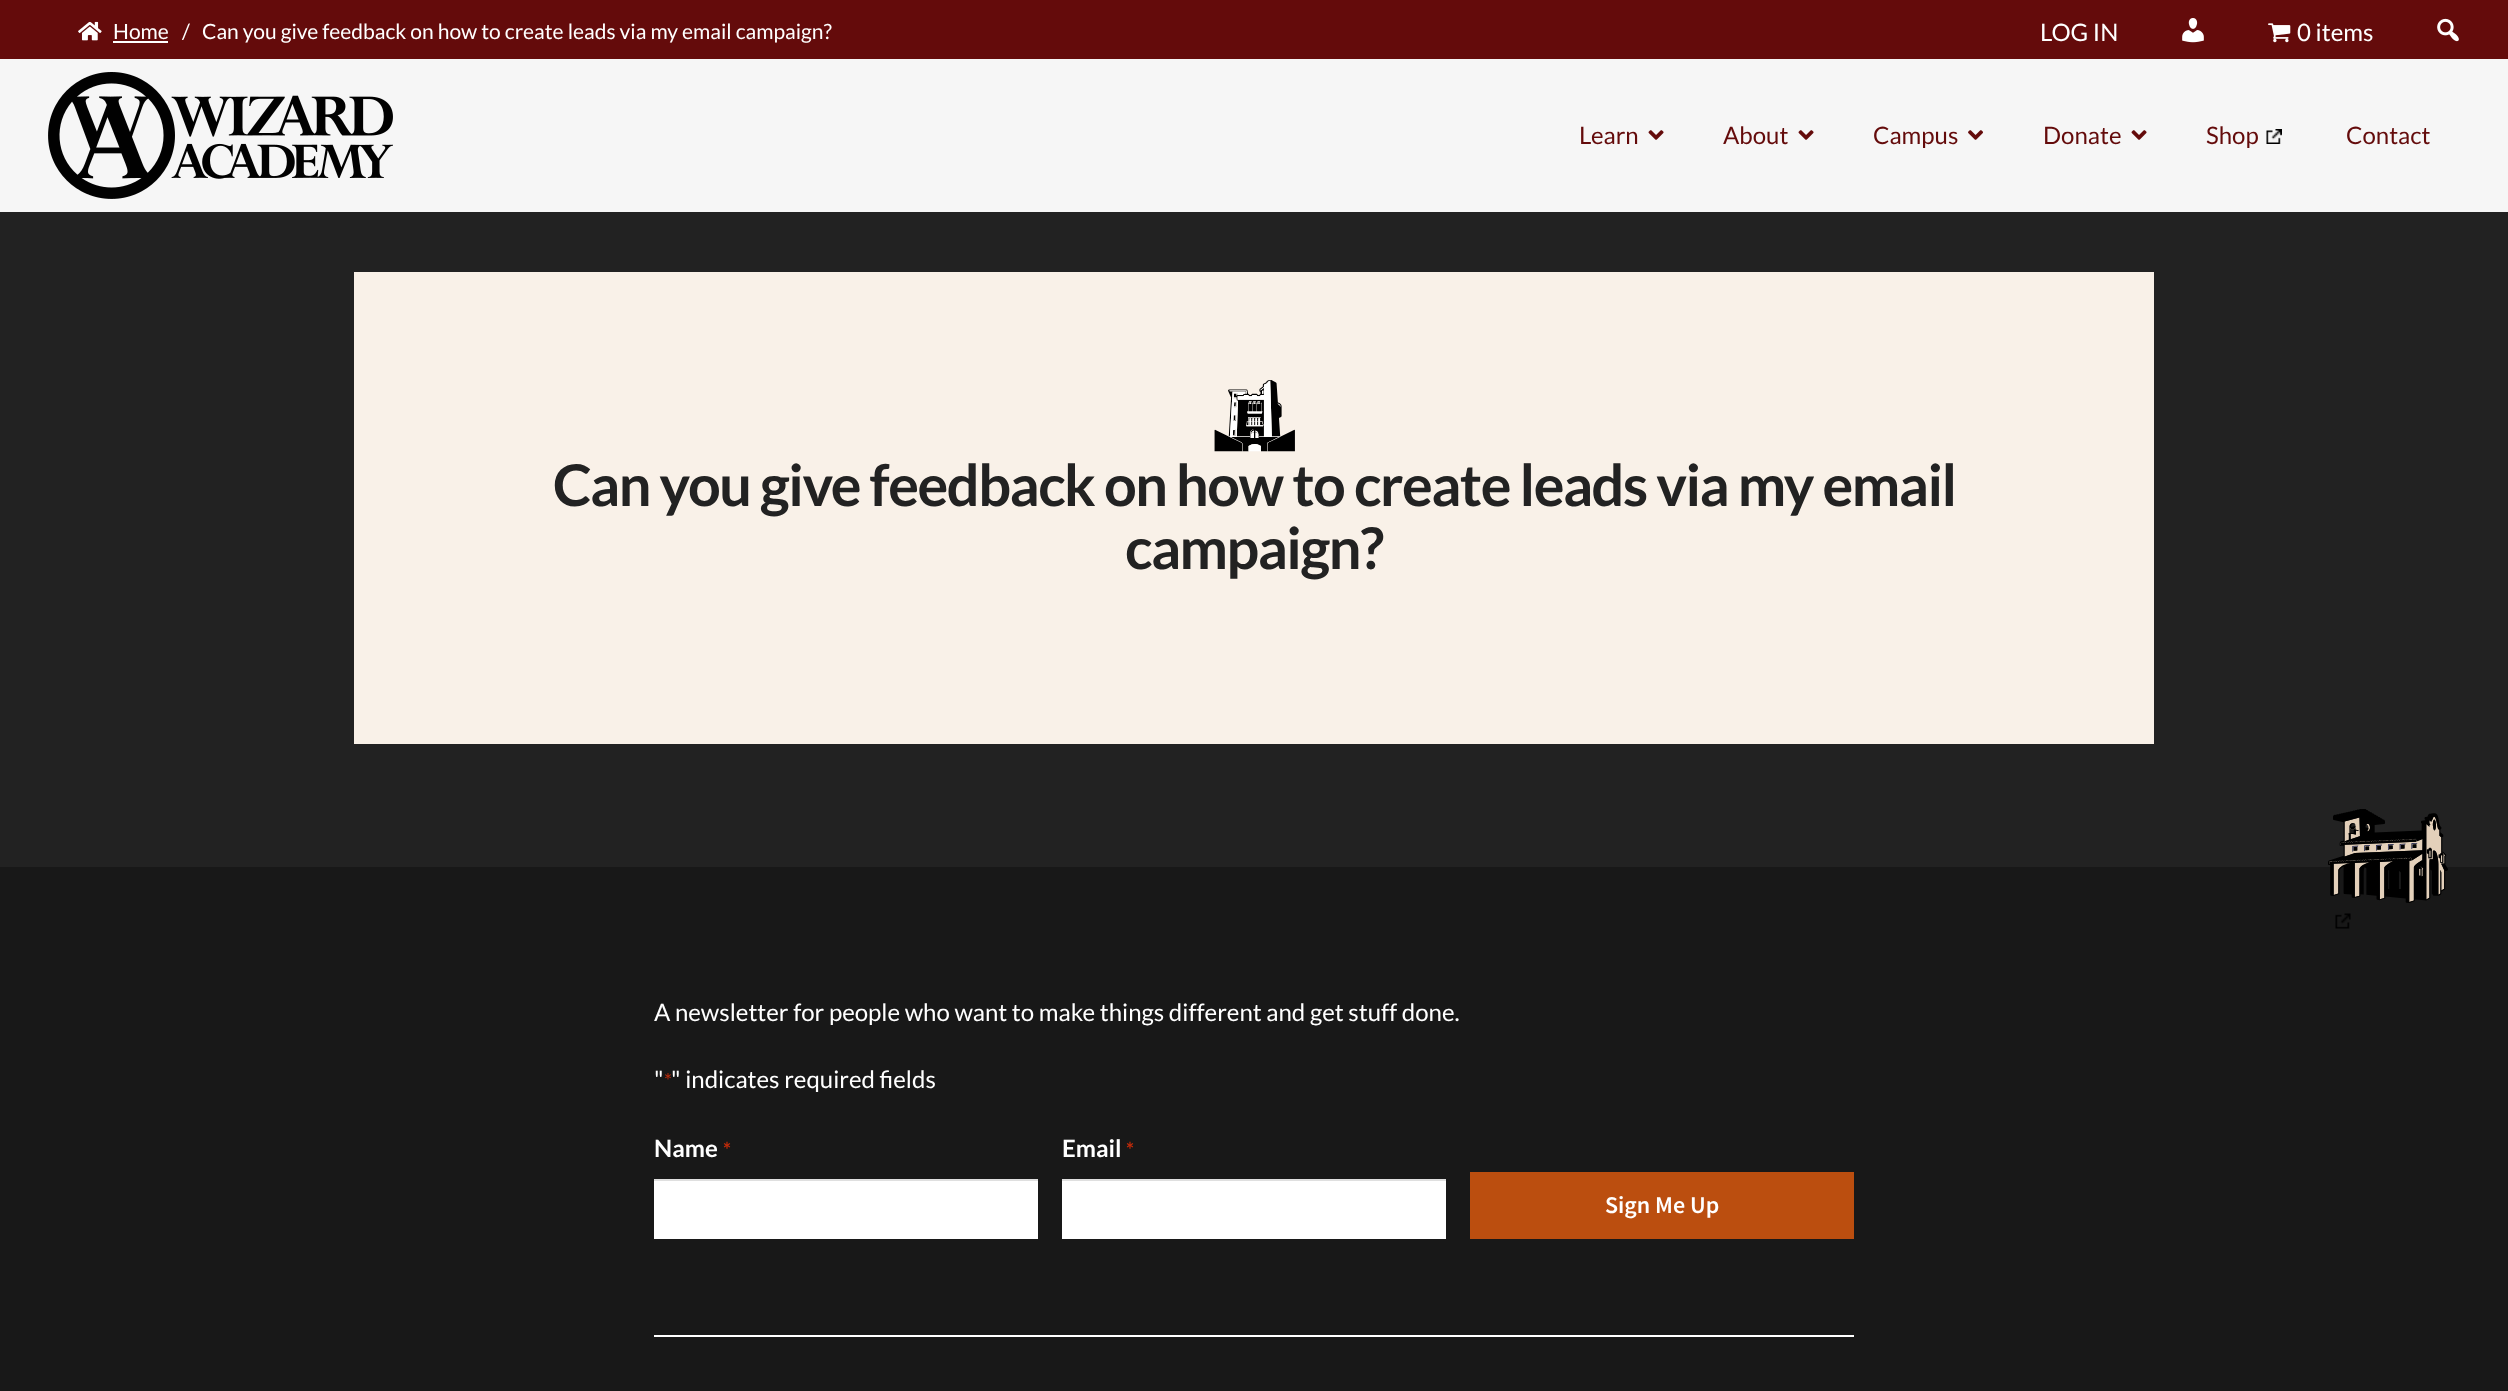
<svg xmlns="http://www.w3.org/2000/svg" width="2508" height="1391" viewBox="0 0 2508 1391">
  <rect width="100%" height="100%" fill="rgb(34,34,34)"/>
  <rect x="0" y="0" width="2508" height="59" fill="rgb(100,11,11)"/>
  <image x="78" y="21" width="24" height="20" href="pic1.png"/>
  <text x="113" y="39" font-family="Lato" font-size="21" fill="rgb(255,255,255)">Home</text>
  <rect x="113" y="41" width="55" height="2" fill="rgb(255,255,255)"/>
  <g font-family="Lato" font-size="21" fill="rgb(255,255,255)">
    <text x="182" y="39">/</text>
    <text x="202" y="39">Can you give feedback on how to create leads via my email campaign?</text>
  </g>
  <text x="2040" y="41" font-family="Lato" font-size="24" fill="rgb(255,255,255)">LOG IN</text>
  <image x="2182" y="18" width="22" height="25" href="pic2.png"/>
  <image x="2268" y="23" width="23" height="20" href="pic3.png"/>
  <text x="2297" y="41" font-family="Lato" font-size="24" fill="rgb(255,255,255)">0 items</text>
  <image x="2437" y="18" width="22" height="24" href="pic4.png"/>
  <rect x="0" y="59" width="2508" height="153" fill="rgb(246,246,246)"/>
  <image x="48" y="72" width="345" height="127" href="pic5.png"/>
  <text x="1579" y="144" font-family="Lato" font-size="24" fill="rgb(100,11,11)">Learn</text>
  <image x="1648" y="130" width="16" height="10" href="pic6.png"/>
  <text x="1723" y="144" font-family="Lato" font-size="24" fill="rgb(100,11,11)">About</text>
  <image x="1798" y="130" width="16" height="10" href="pic6.png"/>
  <text x="1873" y="144" font-family="Lato" font-size="24" fill="rgb(100,11,11)">Campus</text>
  <image x="1968" y="130" width="15" height="10" href="pic7.png"/>
  <text x="2043" y="144" font-family="Lato" font-size="24" fill="rgb(100,11,11)">Donate</text>
  <image x="2131" y="130" width="16" height="10" href="pic6.png"/>
  <text x="2206" y="144" font-family="Lato" font-size="24" fill="rgb(100,11,11)">Shop</text>
  <image x="2266" y="129" width="16" height="15" href="pic8.png"/>
  <text x="2346" y="144" font-family="Lato" font-size="24" fill="rgb(100,11,11)">Contact</text>
  <rect x="354" y="272" width="1800" height="472" fill="rgb(249,241,232)"/>
  <image x="1214" y="380" width="81" height="72" href="pic9.png"/>
  <g font-family="Lato" font-size="57.6" font-weight="bold" letter-spacing="-1.5" fill="rgb(34,34,34)">
    <text x="553" y="506">Can you give feedback on how to create leads via my email</text>
    <text x="1125" y="569">campaign?</text>
  </g>
  <rect x="0" y="867" width="2508" height="524" fill="rgb(24,24,24)"/>
  <image x="2328" y="809" width="120" height="94" href="pic10.png"/>
  <image x="2335" y="913" width="16" height="16" href="pic11.png"/>
  <text x="654" y="1021" font-family="Lato" font-size="24" fill="rgb(255,255,255)">A newsletter for people who want to make things different and get stuff done.</text>
  <rect x="654" y="1335" width="1200" height="2" fill="rgb(255,255,255)"/>
  <text x="654" y="1088" font-family="Lato" font-size="24" fill="rgb(255,255,255)">"</text>
  <text x="664" y="1088" font-family="Lato" font-size="20" fill="rgb(192,43,10)">*</text>
  <text x="671" y="1088" font-family="Lato" font-size="24" fill="rgb(255,255,255)">" indicates required fields</text>
  <text x="654" y="1157" font-family="Lato" font-size="24" font-weight="bold" fill="rgb(255,255,255)">Name</text>
  <text x="723" y="1157" font-family="Lato" font-size="20" font-weight="bold" fill="rgb(192,43,10)">*</text>
  <rect x="654" y="1181" width="384" height="58" fill="rgb(255,255,255)"/>
  <rect x="654" y="1179" width="384" height="2" fill="rgb(223,223,223)"/>
  <text x="1062" y="1157" font-family="Lato" font-size="24" font-weight="bold" fill="rgb(255,255,255)">Email</text>
  <text x="1126" y="1157" font-family="Lato" font-size="20" font-weight="bold" fill="rgb(192,43,10)">*</text>
  <rect x="1062" y="1181" width="384" height="58" fill="rgb(255,255,255)"/>
  <rect x="1062" y="1179" width="384" height="2" fill="rgb(223,223,223)"/>
  <rect x="1470" y="1172" width="384" height="67" fill="rgb(187,78,15)"/>
  <text x="1605" y="1213" font-family="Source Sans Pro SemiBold" font-size="24" font-weight="600" fill="rgb(255,255,255)">Sign Me Up</text>
</svg>
